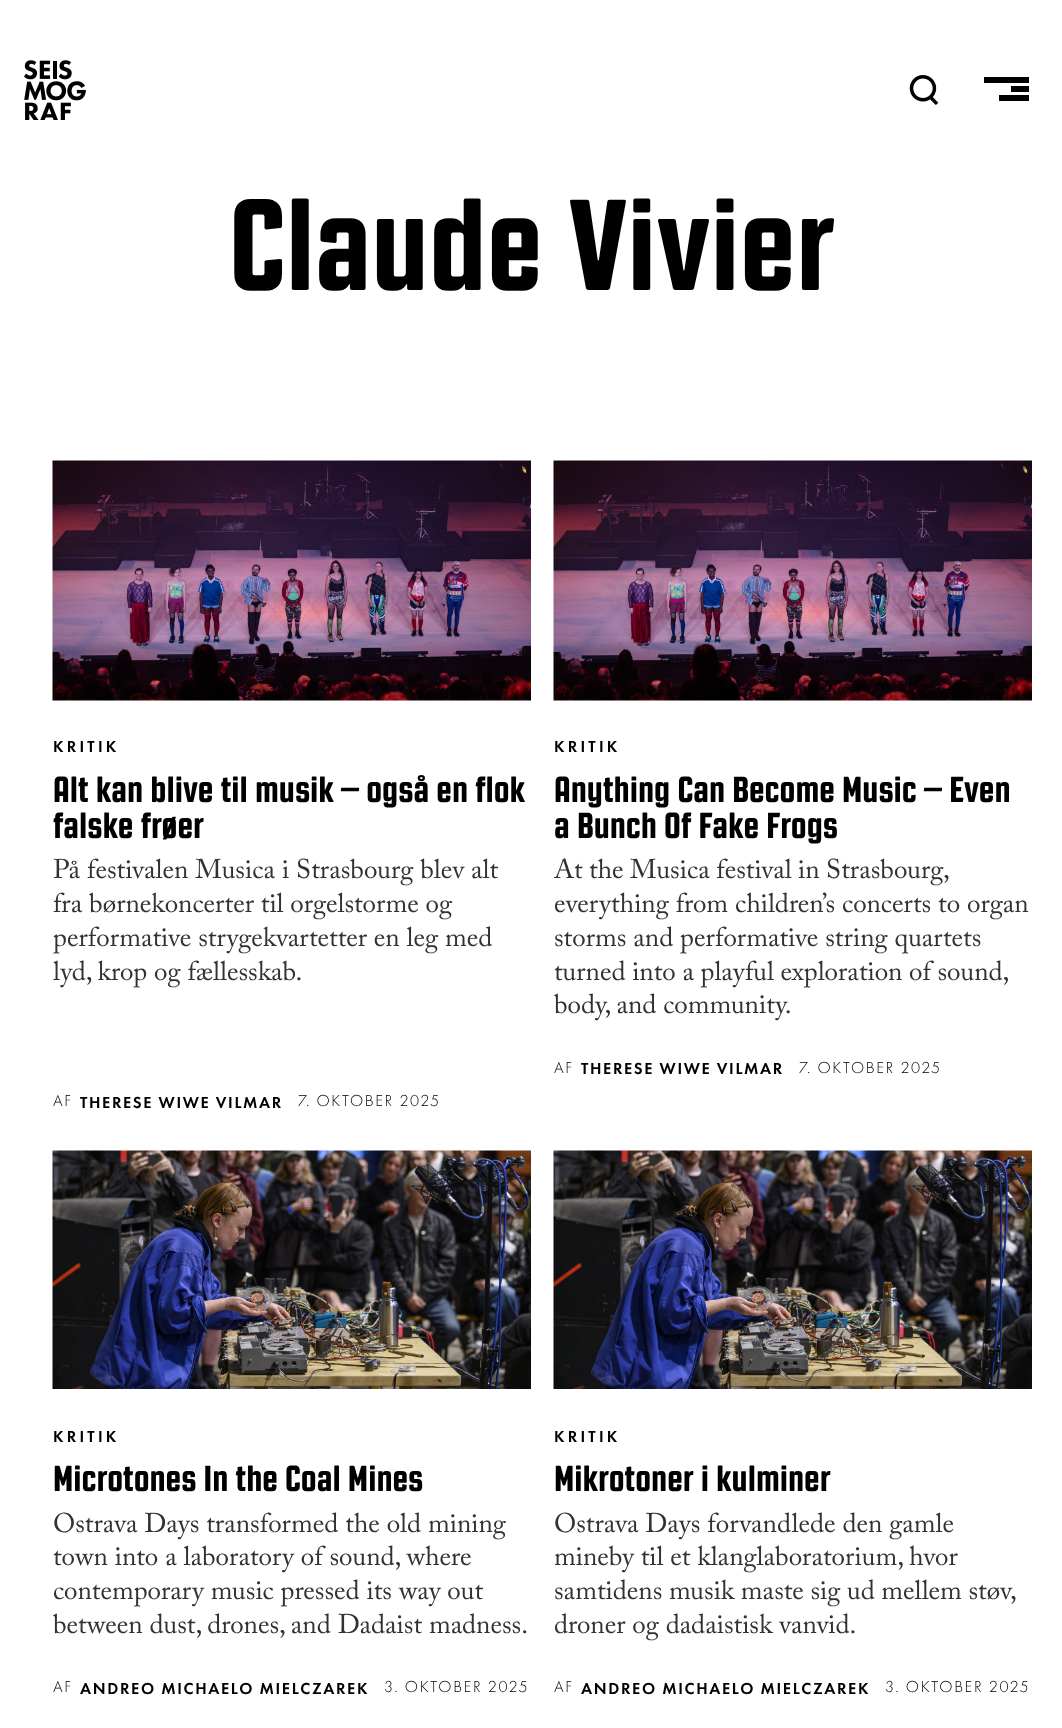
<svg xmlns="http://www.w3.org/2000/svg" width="1062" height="1728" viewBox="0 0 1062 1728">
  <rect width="100%" height="100%" fill="rgb(255,255,255)"/>
  <image x="24" y="60" width="62" height="60" href="pic1.png"/>
  <image x="909" y="75" width="30" height="30" href="pic2.png"/>
  <rect x="984" y="77" width="45" height="6" fill="rgb(0,0,0)"/>
  <rect x="1011" y="86" width="18" height="6" fill="rgb(0,0,0)"/>
  <rect x="999" y="95" width="30" height="6" fill="rgb(0,0,0)"/>
  <text x="229" y="290" font-family="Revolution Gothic" font-size="129" font-weight="800" fill="rgb(0,0,0)">Claude Vivier</text>
  <image x="52" y="460" width="479" height="241" href="pic3.png"/>
  <text x="53" y="752" font-family="Futura PT" font-size="16.5" font-weight="500" letter-spacing="3.25" fill="rgb(0,0,0)">KRITIK</text>
  <g font-family="Revolution Gothic" font-size="36" font-weight="800" fill="rgb(0,0,0)">
    <text>
      <tspan x="53" y="802">Alt kan blive til musik – også en flok</tspan>
      <tspan x="53" y="838">falske frøer</tspan>
    </text>
  </g>
  <g font-family="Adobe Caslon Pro" font-size="27" fill="rgb(50,50,50)">
    <text>
      <tspan x="53" y="878">På festivalen Musica i Strasbourg blev alt</tspan>
      <tspan x="53" y="912">fra børnekoncerter til orgelstorme og</tspan>
      <tspan x="53" y="946">performative strygekvartetter en leg med</tspan>
      <tspan x="53" y="980">lyd, krop og fællesskab.</tspan>
    </text>
  </g>
  <text x="53" y="1106" font-family="Futura PT" font-size="16.5" font-weight="300" letter-spacing="1.65" fill="rgb(0,0,0)">AF</text>
  <text x="80" y="1108" font-family="Futura PT" font-size="16.5" font-weight="500" letter-spacing="1.65" fill="rgb(0,0,0)">THERESE WIWE VILMAR</text>
  <text x="298" y="1106" font-family="Futura PT" font-size="16.5" font-weight="300" letter-spacing="1.65" fill="rgb(0,0,0)">7. OKTOBER 2025</text>
  <image x="553" y="460" width="479" height="241" href="pic3.png"/>
  <text x="554" y="752" font-family="Futura PT" font-size="16.5" font-weight="500" letter-spacing="3.25" fill="rgb(0,0,0)">KRITIK</text>
  <g font-family="Revolution Gothic" font-size="36" font-weight="800" fill="rgb(0,0,0)">
    <text>
      <tspan x="554" y="802">Anything Can Become Music – Even</tspan>
      <tspan x="554" y="838">a Bunch Of Fake Frogs</tspan>
    </text>
  </g>
  <g font-family="Adobe Caslon Pro" font-size="27" fill="rgb(50,50,50)">
    <text>
      <tspan x="554" y="878" word-spacing="-0.5">At the Musica festival in Strasbourg,</tspan>
      <tspan x="554" y="912">everything from children’s concerts to organ</tspan>
      <tspan x="554" y="946">storms and performative string quartets</tspan>
      <tspan x="554" y="980" word-spacing="-0.25">turned into a playful exploration of sound,</tspan>
      <tspan x="554" y="1013">body, and community.</tspan>
    </text>
  </g>
  <text x="554" y="1073" font-family="Futura PT" font-size="16.5" font-weight="300" letter-spacing="1.65" fill="rgb(0,0,0)">AF</text>
  <text x="581" y="1074" font-family="Futura PT" font-size="16.5" font-weight="500" letter-spacing="1.65" fill="rgb(0,0,0)">THERESE WIWE VILMAR</text>
  <text x="799" y="1073" font-family="Futura PT" font-size="16.5" font-weight="300" letter-spacing="1.65" fill="rgb(0,0,0)">7. OKTOBER 2025</text>
  <image x="52" y="1150" width="479" height="239" href="pic4.png"/>
  <text x="53" y="1442" font-family="Futura PT" font-size="16.5" font-weight="500" letter-spacing="3.25" fill="rgb(0,0,0)">KRITIK</text>
  <text x="53" y="1491" font-family="Revolution Gothic" font-size="36" font-weight="800" fill="rgb(0,0,0)">Microtones In the Coal Mines</text>
  <g font-family="Adobe Caslon Pro" font-size="27" fill="rgb(50,50,50)">
    <text>
      <tspan x="53" y="1532">Ostrava Days transformed the old mining</tspan>
      <tspan x="53" y="1565">town into a laboratory of sound, where</tspan>
      <tspan x="53" y="1599">contemporary music pressed its way out</tspan>
      <tspan x="53" y="1633">between dust, drones, and Dadaist madness.</tspan>
    </text>
  </g>
  <text x="53" y="1692" font-family="Futura PT" font-size="16.5" font-weight="300" letter-spacing="1.65" fill="rgb(0,0,0)">AF</text>
  <text x="80" y="1694" font-family="Futura PT" font-size="16.5" font-weight="500" letter-spacing="1.65" fill="rgb(0,0,0)">ANDREO MICHAELO MIELCZAREK</text>
  <text x="384" y="1692" font-family="Futura PT" font-size="16.5" font-weight="300" letter-spacing="1.65" fill="rgb(0,0,0)">3. OKTOBER 2025</text>
  <image x="553" y="1150" width="479" height="239" href="pic4.png"/>
  <text x="554" y="1442" font-family="Futura PT" font-size="16.5" font-weight="500" letter-spacing="3.25" fill="rgb(0,0,0)">KRITIK</text>
  <text x="554" y="1491" font-family="Revolution Gothic" font-size="36" font-weight="800" fill="rgb(0,0,0)">Mikrotoner i kulminer</text>
  <g font-family="Adobe Caslon Pro" font-size="27" fill="rgb(50,50,50)">
    <text>
      <tspan x="554" y="1532">Ostrava Days forvandlede den gamle</tspan>
      <tspan x="554" y="1565">mineby til et klanglaboratorium, hvor</tspan>
      <tspan x="554" y="1599" word-spacing="-0.25">samtidens musik maste sig ud mellem støv,</tspan>
      <tspan x="554" y="1633">droner og dadaistisk vanvid.</tspan>
    </text>
  </g>
  <text x="554" y="1692" font-family="Futura PT" font-size="16.5" font-weight="300" letter-spacing="1.65" fill="rgb(0,0,0)">AF</text>
  <text x="581" y="1694" font-family="Futura PT" font-size="16.5" font-weight="500" letter-spacing="1.65" fill="rgb(0,0,0)">ANDREO MICHAELO MIELCZAREK</text>
  <text x="885" y="1692" font-family="Futura PT" font-size="16.5" font-weight="300" letter-spacing="1.65" fill="rgb(0,0,0)">3. OKTOBER 2025</text>
</svg>
